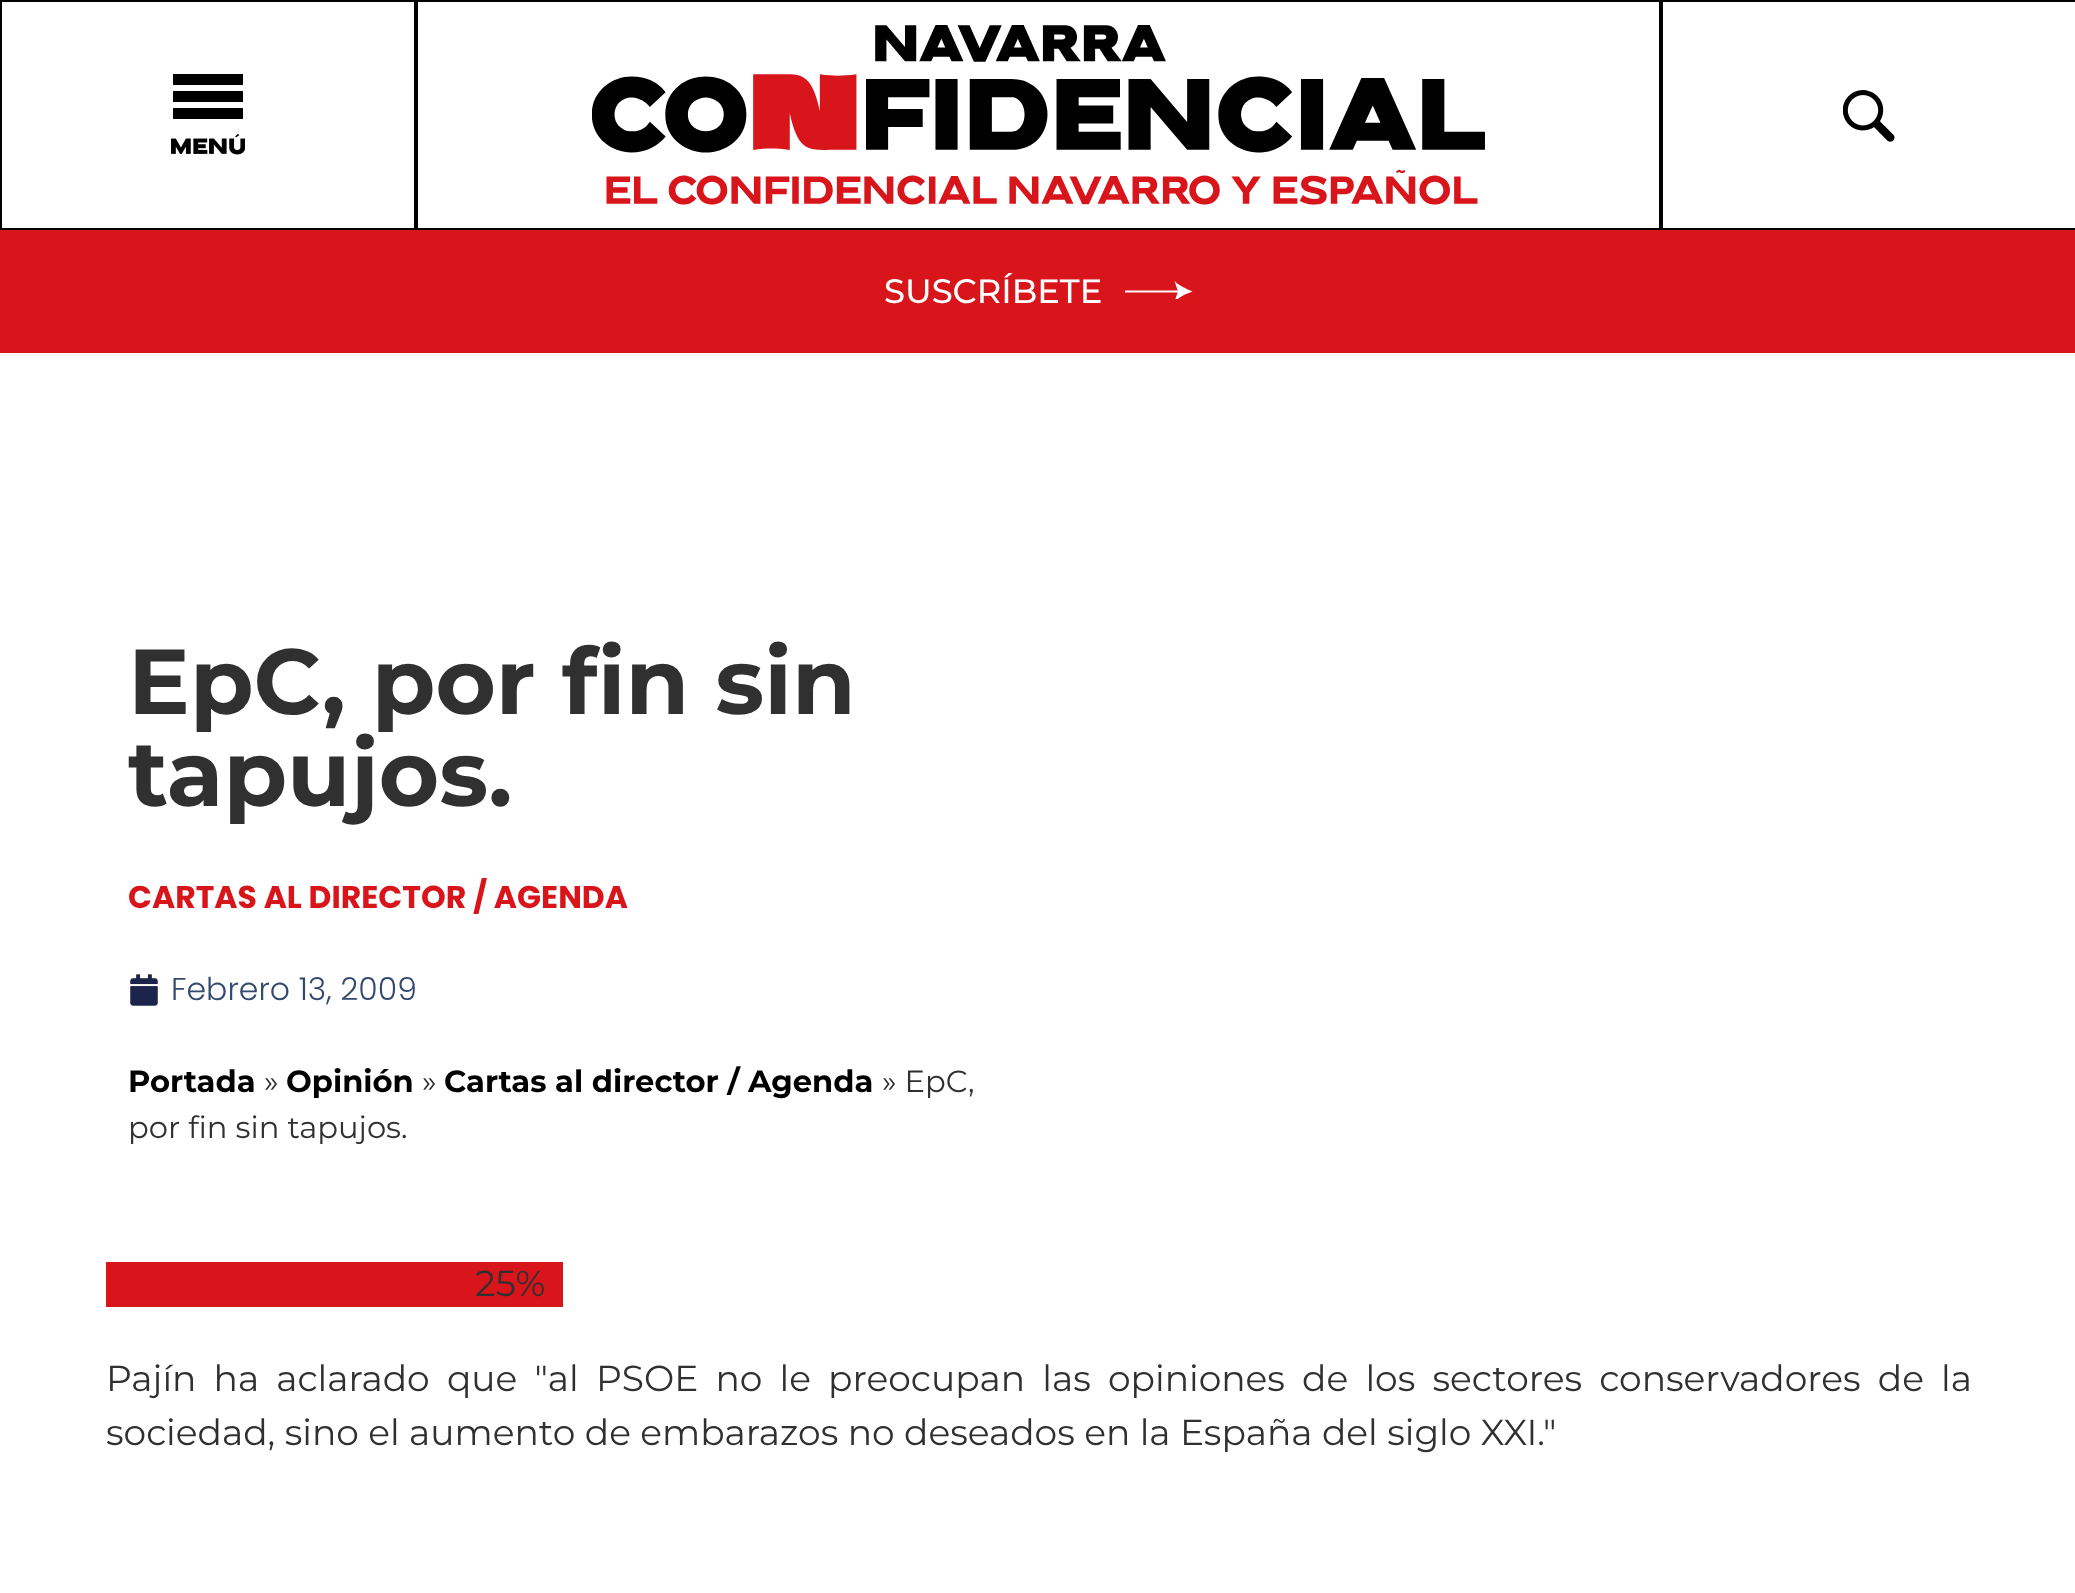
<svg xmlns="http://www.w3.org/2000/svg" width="2075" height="1593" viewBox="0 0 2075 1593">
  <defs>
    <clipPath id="clip1"><rect x="1125" y="281" width="68" height="18"/></clipPath>
  </defs>
  <rect width="100%" height="100%" fill="rgb(255,255,255)"/>
  <rect x="1" y="1" width="414" height="228" fill="none" stroke="rgb(0,0,0)" stroke-width="2"/>
  <image x="171" y="74" width="74" height="81" href="pic1.png"/>
  <rect x="417" y="1" width="1243" height="228" fill="none" stroke="rgb(0,0,0)" stroke-width="2"/>
  <image x="592" y="25" width="893" height="180" href="pic2.png"/>
  <rect x="1662" y="1" width="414" height="228" fill="none" stroke="rgb(0,0,0)" stroke-width="2"/>
  <image x="1843" y="90" width="52" height="52" href="pic3.png"/>
  <rect x="0" y="230" width="2075" height="123" fill="rgb(217,21,28)"/>
  <text x="884" y="303" font-family="Montserrat" font-size="33.75" font-weight="500" fill="rgb(255,255,255)">SUSCRÍBETE</text>
  <path d="M1125 291.5H1180" fill="none" stroke="rgb(255,255,255)" stroke-width="2.1"/>
  <g clip-path="url(#clip1)">
    <path d="M1192.5 291.5C1186.5 293.5 1179 297 1174.5 301.5L1178 291.5L1174.5 281C1179 285.5 1186.5 289 1192.5 291.5Z" fill="rgb(255,255,255)"/>
  </g>
  <g font-family="Montserrat" font-size="92.25" font-weight="bold" fill="rgb(48,48,48)">
    <text>
      <tspan x="128" y="714">EpC, por fin sin</tspan>
      <tspan x="128" y="806">tapujos.</tspan>
    </text>
  </g>
  <text x="128" y="908" font-family="Poppins" font-size="31.5" font-weight="bold" fill="rgb(217,21,28)">CARTAS AL DIRECTOR / AGENDA</text>
  <image x="130" y="974" width="28" height="32" href="pic4.png"/>
  <text x="171" y="1000" font-family="Poppins" font-size="31.5" font-weight="300" fill="rgb(50,74,109)">Febrero 13, 2009</text>
  <text x="128" y="1092" font-family="Montserrat" font-size="30.6" font-weight="bold" fill="rgb(0,0,0)">Portada</text>
  <text x="264" y="1092" font-family="Montserrat" font-size="30.6" fill="rgb(48,48,48)">»</text>
  <text x="286" y="1092" font-family="Montserrat" font-size="30.6" font-weight="bold" fill="rgb(0,0,0)">Opinión</text>
  <text x="422" y="1092" font-family="Montserrat" font-size="30.6" fill="rgb(48,48,48)">»</text>
  <text x="444" y="1092" font-family="Montserrat" font-size="30.6" font-weight="bold" fill="rgb(0,0,0)">Cartas al director / Agenda</text>
  <g font-family="Montserrat" font-size="30.6" fill="rgb(48,48,48)">
    <text x="882" y="1092">» EpC,</text>
    <text x="128" y="1138">por fin sin tapujos.</text>
  </g>
  <rect x="106" y="1262" width="457" height="45" fill="rgb(217,21,28)"/>
  <g font-family="Montserrat" font-size="36" fill="rgb(48,48,48)">
    <text x="475" y="1296">25%</text>
    <text>
      <tspan x="106" y="1391" word-spacing="7.75">Pajín ha aclarado que "al PSOE no le preocupan las opiniones de los sectores conservadores de la</tspan>
      <tspan x="106" y="1445">sociedad, sino el aumento de embarazos no deseados en la España del siglo XXI."</tspan>
    </text>
  </g>
</svg>
